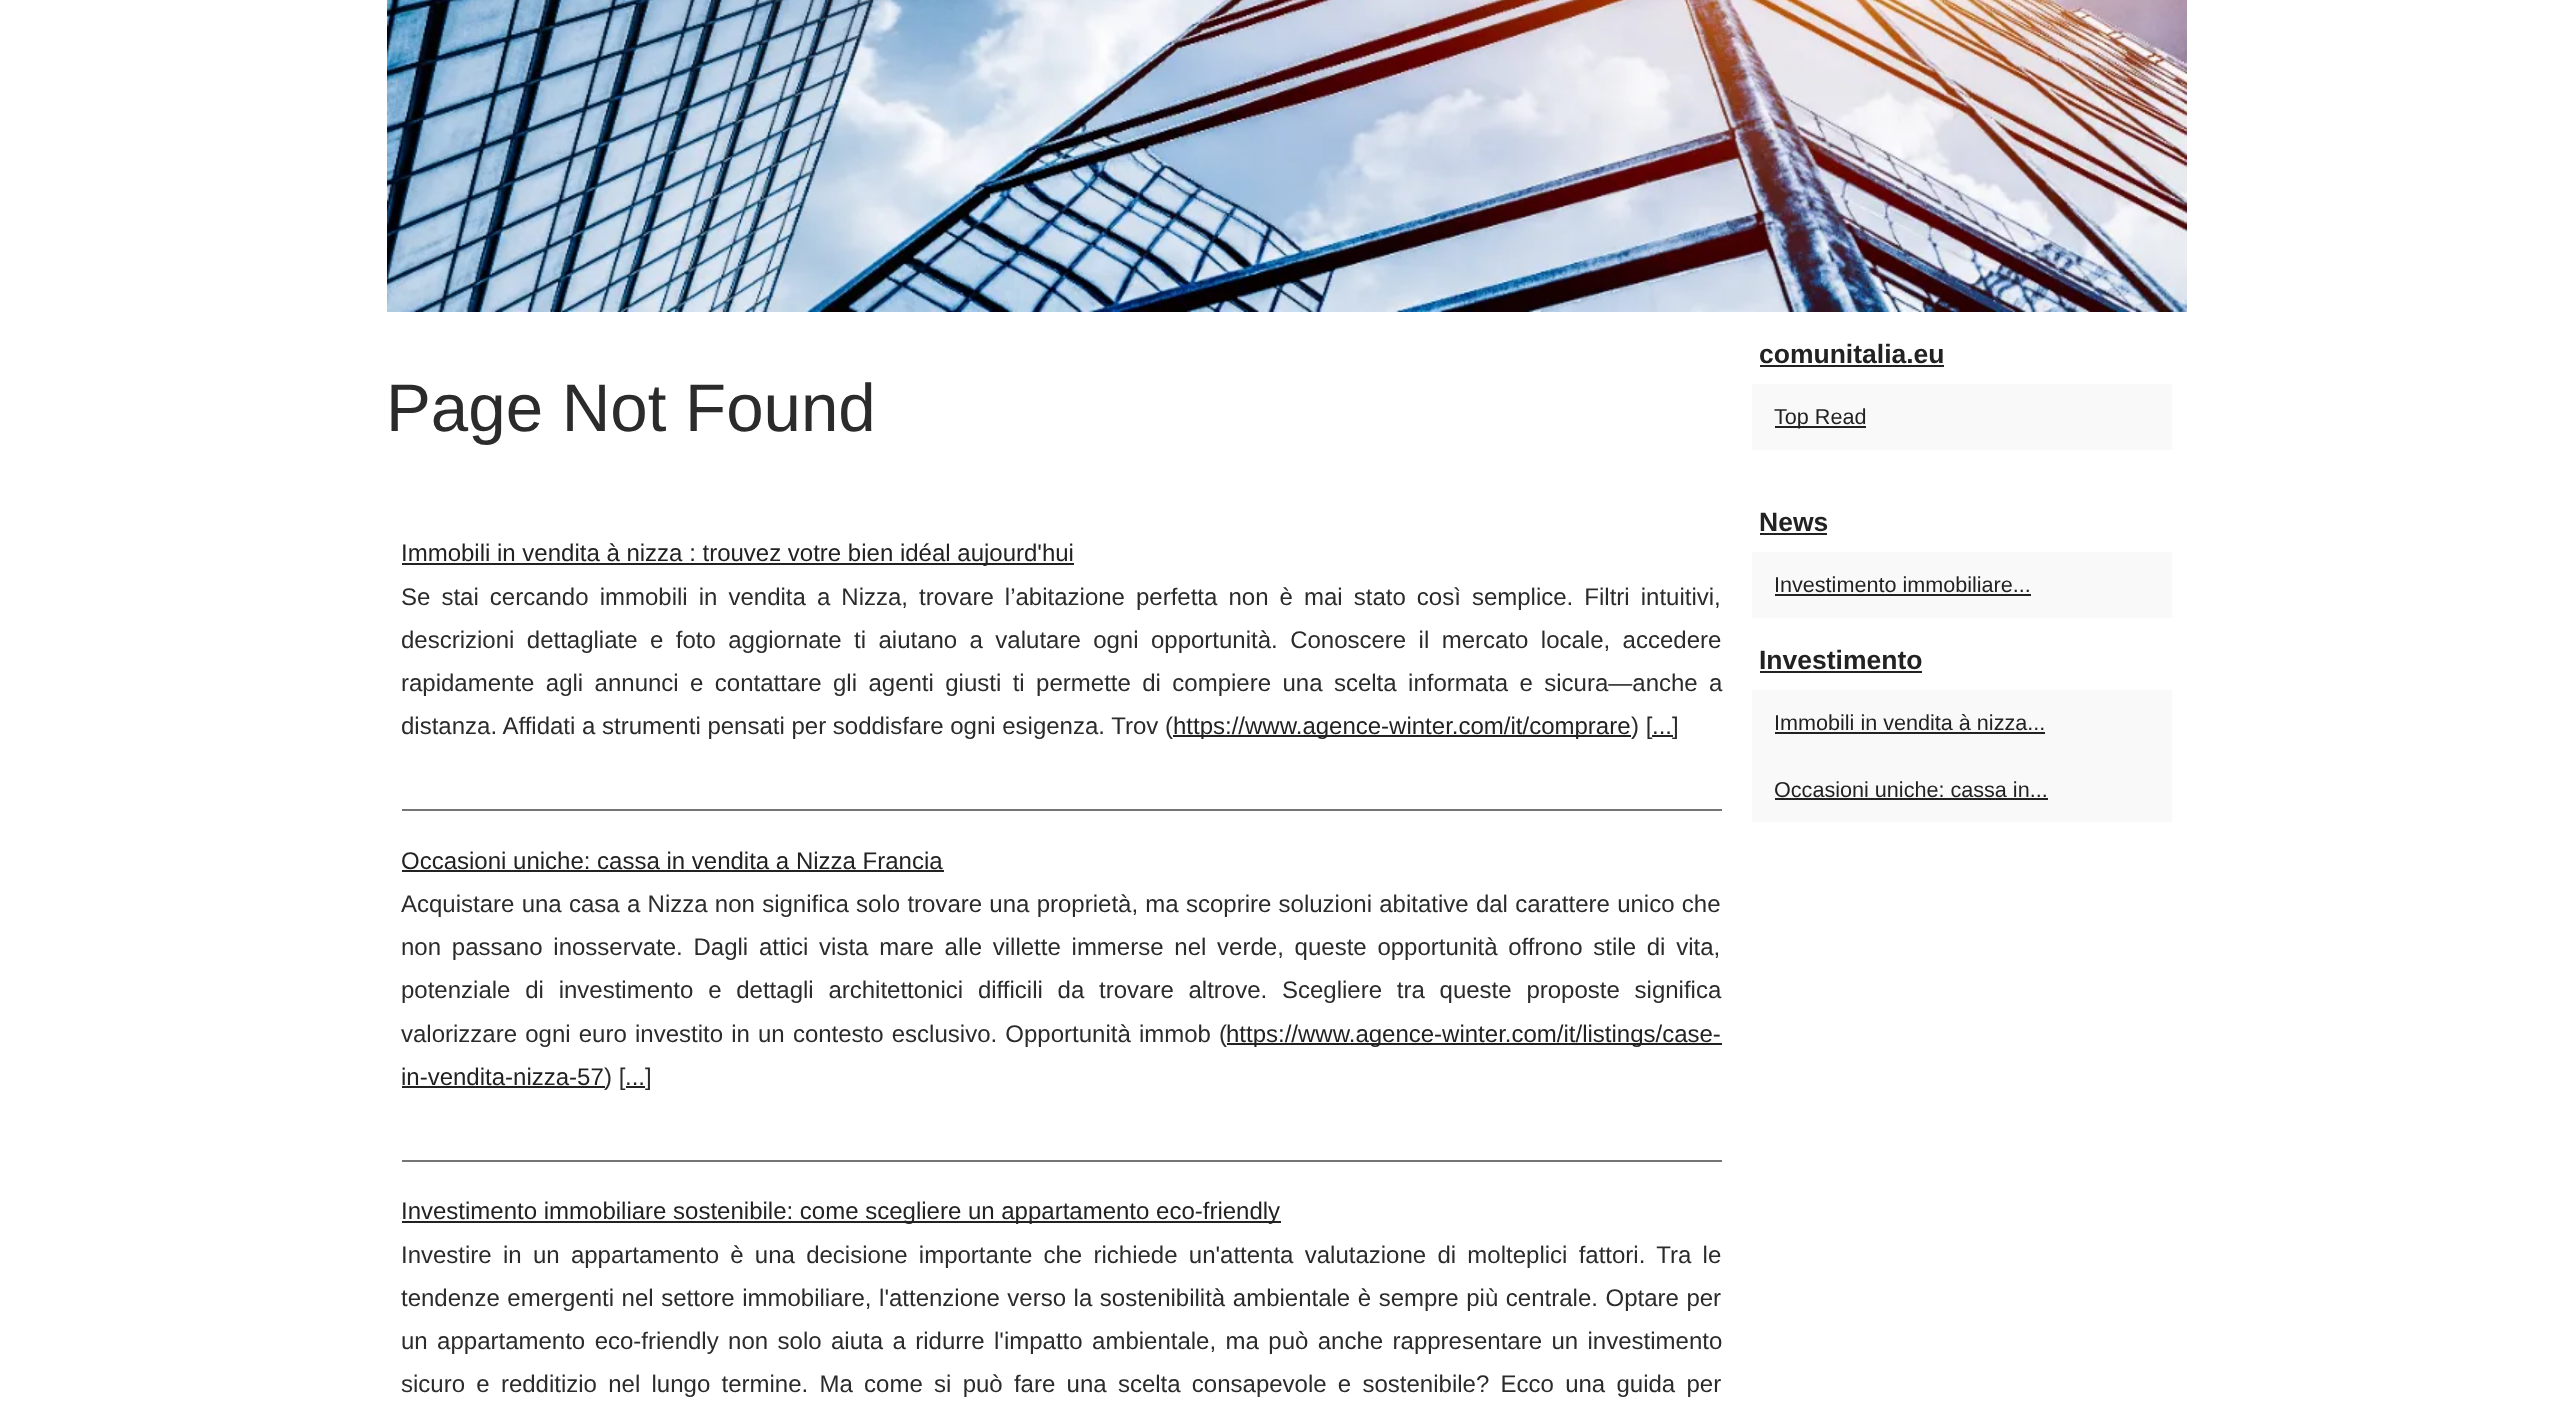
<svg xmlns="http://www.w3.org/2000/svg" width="2572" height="1404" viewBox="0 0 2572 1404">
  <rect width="100%" height="100%" fill="rgb(255,255,255)"/>
  <image x="387" y="0" width="1800" height="312" href="pic1.png"/>
  <text x="386" y="431" font-family="Liberation Sans" font-size="67.25" fill="rgb(43,43,43)">Page Not Found</text>
  <rect x="402" y="563" width="672" height="2" fill="rgb(34,34,34)"/>
  <text x="401" y="561" font-family="Liberation Sans" font-size="24" fill="rgb(34,34,34)">Immobili in vendita à nizza : trouvez votre bien idéal aujourd'hui</text>
  <g font-family="Liberation Sans" font-size="24" fill="rgb(43,43,43)">
    <text>
      <tspan x="401" y="605" word-spacing="4.4">Se stai cercando immobili in vendita a Nizza, trovare l’abitazione perfetta non è mai stato così semplice. Filtri intuitivi,</tspan>
      <tspan x="401" y="648" word-spacing="5.75">descrizioni dettagliate e foto aggiornate ti aiutano a valutare ogni opportunità. Conoscere il mercato locale, accedere</tspan>
      <tspan x="401" y="691" word-spacing="4.75">rapidamente agli annunci e contattare gli agenti giusti ti permette di compiere una scelta informata e sicura—anche a</tspan>
      <tspan x="401" y="734">distanza. Affidati a strumenti pensati per soddisfare ogni esigenza. Trov (</tspan>
    </text>
  </g>
  <rect x="1173" y="735" width="458" height="2" fill="rgb(34,34,34)"/>
  <text x="1173" y="734" font-family="Liberation Sans" font-size="24" fill="rgb(34,34,34)">https://www.agence-winter.com/it/comprare</text>
  <text x="1631" y="734" font-family="Liberation Sans" font-size="24" fill="rgb(43,43,43)">) [</text>
  <text x="1652" y="734" font-family="Liberation Sans" font-size="24" fill="rgb(34,34,34)">...</text>
  <rect x="1652" y="735" width="21" height="2" fill="rgb(34,34,34)"/>
  <text x="1672" y="734" font-family="Liberation Sans" font-size="24" fill="rgb(43,43,43)">]</text>
  <rect x="402" y="809" width="1320" height="2" fill="rgb(117,117,117)"/>
  <text x="401" y="869" font-family="Liberation Sans" font-size="24" fill="rgb(34,34,34)">Occasioni uniche: cassa in vendita a Nizza Francia</text>
  <rect x="402" y="870" width="542" height="2" fill="rgb(34,34,34)"/>
  <g font-family="Liberation Sans" font-size="24" fill="rgb(43,43,43)">
    <text>
      <tspan x="401" y="912" word-spacing="0.6">Acquistare una casa a Nizza non significa solo trovare una proprietà, ma scoprire soluzioni abitative dal carattere unico che</tspan>
      <tspan x="401" y="955" word-spacing="4.1">non passano inosservate. Dagli attici vista mare alle villette immerse nel verde, queste opportunità offrono stile di vita,</tspan>
      <tspan x="401" y="998" word-spacing="8.1">potenziale di investimento e dettagli architettonici difficili da trovare altrove. Scegliere tra queste proposte significa</tspan>
      <tspan x="401" y="1042" word-spacing="1.5">valorizzare ogni euro investito in un contesto esclusivo. Opportunità immob (</tspan>
    </text>
  </g>
  <rect x="1227" y="1043" width="495" height="2" fill="rgb(34,34,34)"/>
  <g font-family="Liberation Sans" font-size="24" fill="rgb(34,34,34)">
    <text x="1226" y="1042">https://www.agence-winter.com/it/listings/case-</text>
    <text x="401" y="1085">in-vendita-nizza-57</text>
  </g>
  <rect x="402" y="1086" width="203" height="2" fill="rgb(34,34,34)"/>
  <text x="604" y="1085" font-family="Liberation Sans" font-size="24" fill="rgb(43,43,43)">) [</text>
  <text x="625" y="1085" font-family="Liberation Sans" font-size="24" fill="rgb(34,34,34)">...</text>
  <rect x="626" y="1086" width="19" height="2" fill="rgb(34,34,34)"/>
  <text x="645" y="1085" font-family="Liberation Sans" font-size="24" fill="rgb(43,43,43)">]</text>
  <rect x="402" y="1160" width="1320" height="2" fill="rgb(117,117,117)"/>
  <rect x="402" y="1221" width="879" height="2" fill="rgb(34,34,34)"/>
  <text x="401" y="1219" font-family="Liberation Sans" font-size="24" fill="rgb(34,34,34)">Investimento immobiliare sostenibile: come scegliere un appartamento eco-friendly</text>
  <g font-family="Liberation Sans" font-size="24" fill="rgb(43,43,43)">
    <text>
      <tspan x="401" y="1263" word-spacing="4.6">Investire in un appartamento è una decisione importante che richiede un'attenta valutazione di molteplici fattori. Tra le</tspan>
      <tspan x="401" y="1306" word-spacing="0.9">tendenze emergenti nel settore immobiliare, l'attenzione verso la sostenibilità ambientale è sempre più centrale. Optare per</tspan>
      <tspan x="401" y="1349" word-spacing="2.75">un appartamento eco-friendly non solo aiuta a ridurre l'impatto ambientale, ma può anche rappresentare un investimento</tspan>
      <tspan x="401" y="1392" word-spacing="4.6">sicuro e redditizio nel lungo termine. Ma come si può fare una scelta consapevole e sostenibile? Ecco una guida per</tspan>
    </text>
  </g>
  <text x="1759" y="363" font-family="Liberation Sans" font-size="26.5" font-weight="bold" fill="rgb(34,34,34)">comunitalia.eu</text>
  <rect x="1760" y="365" width="184" height="2" fill="rgb(34,34,34)"/>
  <rect x="1752" y="384" width="420" height="66" fill="rgb(249,249,249)"/>
  <rect x="1775" y="426" width="91" height="2" fill="rgb(34,34,34)"/>
  <text x="1774" y="424" font-family="Liberation Sans" font-size="21.6" fill="rgb(34,34,34)">Top Read</text>
  <text x="1759" y="531" font-family="Liberation Sans" font-size="26.5" font-weight="bold" fill="rgb(34,34,34)">News</text>
  <rect x="1760" y="533" width="67" height="2" fill="rgb(34,34,34)"/>
  <rect x="1752" y="552" width="420" height="66" fill="rgb(249,249,249)"/>
  <text x="1774" y="592" font-family="Liberation Sans" font-size="21.6" fill="rgb(34,34,34)">Investimento immobiliare...</text>
  <rect x="1775" y="594" width="256" height="2" fill="rgb(34,34,34)"/>
  <text x="1759" y="669" font-family="Liberation Sans" font-size="26.5" font-weight="bold" fill="rgb(34,34,34)">Investimento</text>
  <rect x="1760" y="671" width="162" height="2" fill="rgb(34,34,34)"/>
  <rect x="1752" y="690" width="420" height="132" fill="rgb(249,249,249)"/>
  <text x="1774" y="730" font-family="Liberation Sans" font-size="21.6" fill="rgb(34,34,34)">Immobili in vendita à nizza...</text>
  <rect x="1775" y="732" width="270" height="2" fill="rgb(34,34,34)"/>
  <text x="1774" y="797" font-family="Liberation Sans" font-size="21.6" fill="rgb(34,34,34)">Occasioni uniche: cassa in...</text>
  <rect x="1775" y="798" width="273" height="2" fill="rgb(34,34,34)"/>
</svg>
